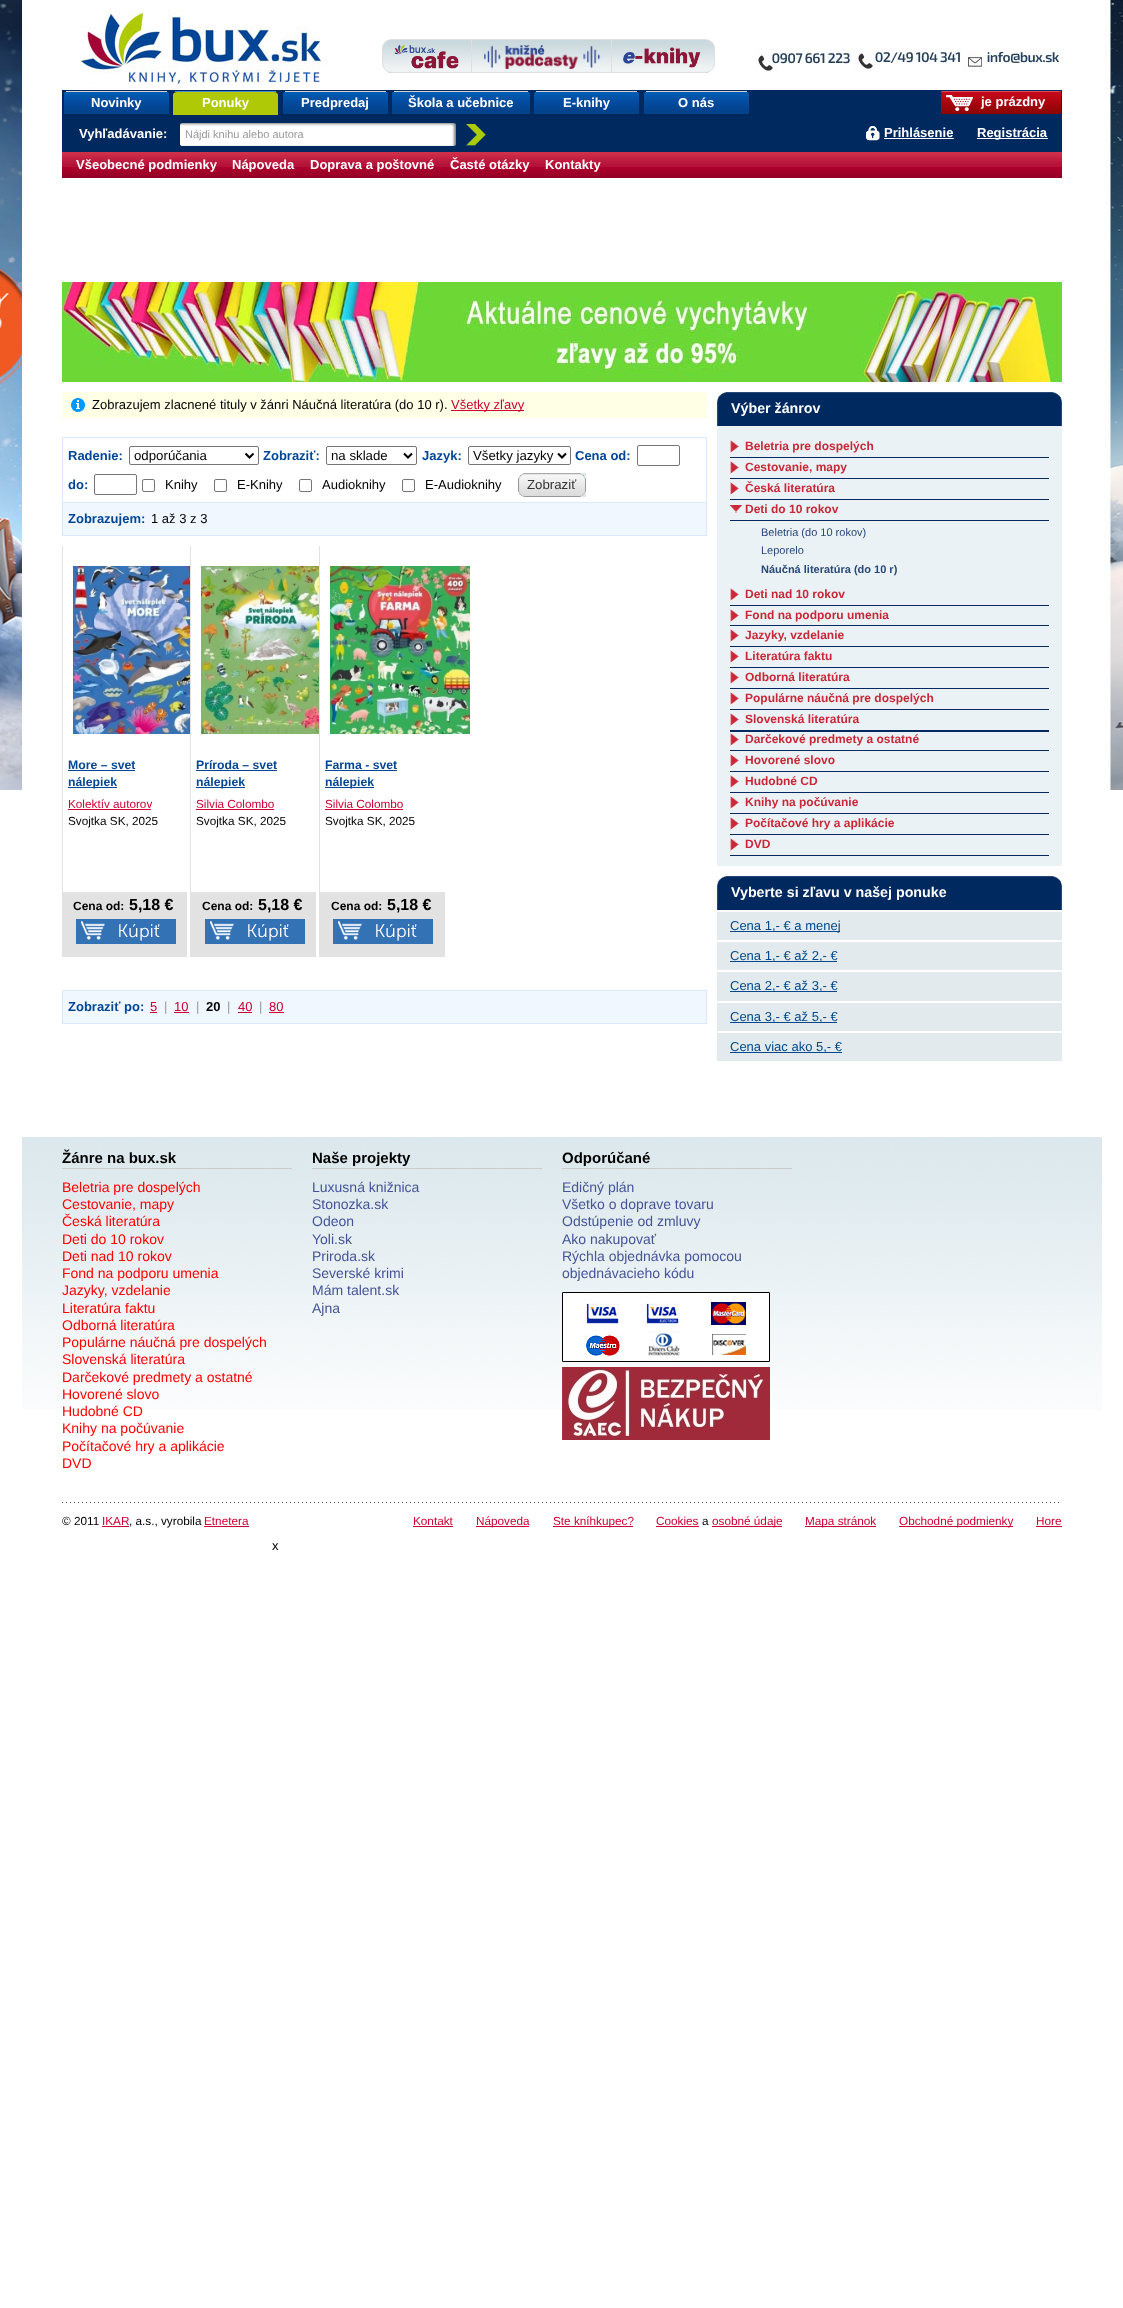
<svg xmlns="http://www.w3.org/2000/svg" width="1123" height="2308" viewBox="0 0 1123 2308">
  <rect width="100%" height="100%" fill="rgb(255,255,255)"/>
  <image x="0" y="0" width="1123" height="790" href="pic1.png"/>
  <rect x="22" y="0" width="2" height="790" fill="rgb(255,255,255)"/>
  <image x="72" y="10" width="256" height="79" href="pic2.png"/>
  <image x="382" y="40" width="89" height="33" href="pic3.png"/>
  <path d="M392 39.5H471.5V72.5H392C387 72.5 382.5 68 382.5 63V49C382.5 44 387 39.5 392 39.5Z" fill="none" stroke="rgb(223,223,223)"/>
  <image x="394" y="44" width="65" height="25" href="pic4.png"/>
  <image x="472" y="40" width="139" height="32" href="pic5.png"/>
  <rect x="472" y="39" width="139" height="1" fill="rgb(223,223,223)"/>
  <rect x="472" y="72" width="139" height="1" fill="rgb(223,223,223)"/>
  <image x="484" y="45" width="117" height="25" href="pic6.png"/>
  <image x="612" y="40" width="103" height="33" href="pic7.png"/>
  <path d="M611.5 39.5H705C710 39.5 714.5 44 714.5 49V63C714.5 68 710 72.5 705 72.5H611.5Z" fill="none" stroke="rgb(223,223,223)"/>
  <image x="623" y="47" width="78" height="21" href="pic8.png"/>
  <image x="756" y="48" width="304" height="24" href="pic9.png"/>
  <rect x="62" y="90" width="1000" height="62" fill="rgb(0,41,96)"/>
  <image x="64" y="92" width="105" height="23" href="pic10.png"/>
  <rect x="66" y="91" width="101" height="1" fill="rgb(209,209,209)"/>
  <text x="91" y="107" font-family="Liberation Sans" font-size="13" font-weight="bold" fill="rgb(255,255,255)">Novinky</text>
  <path d="M177 92H274C276 92 278 93 278 95V115H173V95C173 93 175 92 177 92Z" fill="rgb(175,201,6)"/>
  <rect x="175" y="91" width="101" height="1" fill="rgb(76,138,213)"/>
  <text x="202" y="107" font-family="Liberation Sans" font-size="13" font-weight="bold" fill="rgb(255,255,255)">Ponuky</text>
  <image x="283" y="92" width="105" height="23" href="pic10.png"/>
  <rect x="285" y="91" width="101" height="1" fill="rgb(209,209,209)"/>
  <text x="301" y="107" font-family="Liberation Sans" font-size="13" font-weight="bold" fill="rgb(255,255,255)">Predpredaj</text>
  <image x="392" y="92" width="138" height="23" href="pic11.png"/>
  <rect x="394" y="91" width="134" height="1" fill="rgb(209,209,209)"/>
  <text x="408" y="107" font-family="Liberation Sans" font-size="13" font-weight="bold" fill="rgb(255,255,255)">Škola a učebnice</text>
  <image x="534" y="92" width="105" height="23" href="pic10.png"/>
  <rect x="536" y="91" width="101" height="1" fill="rgb(209,209,209)"/>
  <text x="563" y="107" font-family="Liberation Sans" font-size="13" font-weight="bold" fill="rgb(255,255,255)">E-knihy</text>
  <image x="644" y="92" width="105" height="23" href="pic10.png"/>
  <rect x="646" y="91" width="101" height="1" fill="rgb(209,209,209)"/>
  <g font-family="Liberation Sans" font-size="13" font-weight="bold" fill="rgb(255,255,255)">
    <text x="678" y="107">O nás</text>
    <text x="79" y="138">Vyhľadávanie:</text>
  </g>
  <image x="180" y="123" width="276" height="23" href="pic12.png"/>
  <text x="185" y="138" font-family="Liberation Sans" font-size="11" fill="rgb(153,153,153)">Nájdi knihu alebo autora</text>
  <image x="466" y="124" width="20" height="22" href="pic13.png"/>
  <image x="941" y="91" width="120" height="23" href="pic14.png"/>
  <image x="941" y="91" width="120" height="23" href="pic15.png"/>
  <image x="946" y="95" width="27" height="16" href="pic16.png"/>
  <text x="981" y="106" font-family="Liberation Sans" font-size="13" font-weight="bold" fill="rgb(255,255,255)">je prázdny</text>
  <image x="866" y="126" width="14" height="15" href="pic17.png"/>
  <text x="884" y="137" font-family="Liberation Sans" font-size="13" font-weight="bold" fill="rgb(255,255,255)">Prihlásenie</text>
  <rect x="884" y="138" width="70" height="1" fill="rgb(255,255,255)"/>
  <rect x="977" y="138" width="71" height="1" fill="rgb(255,255,255)"/>
  <text x="977" y="137" font-family="Liberation Sans" font-size="13" font-weight="bold" fill="rgb(255,255,255)">Registrácia</text>
  <image x="62" y="152" width="1000" height="26" href="pic18.png"/>
  <g font-family="Liberation Sans" font-size="13" font-weight="bold" fill="rgb(255,255,255)">
    <text x="76" y="169">Všeobecné podmienky</text>
    <text x="232" y="169">Nápoveda</text>
    <text x="310" y="169">Doprava a poštovné</text>
    <text x="450" y="169">Časté otázky</text>
    <text x="545" y="169">Kontakty</text>
  </g>
  <image x="62" y="282" width="1000" height="100" href="pic19.png"/>
  <rect x="62" y="392" width="645" height="26" fill="rgb(255,255,229)"/>
  <image x="71" y="398" width="14" height="14" href="pic20.png"/>
  <text x="92" y="409" font-family="Liberation Sans" font-size="13" fill="rgb(0,0,0)">Zobrazujem zlacnené tituly v žánri Náučná literatúra (do 10 r).</text>
  <rect x="451" y="410" width="73" height="1" fill="rgb(204,0,51)"/>
  <text x="451" y="409" font-family="Liberation Sans" font-size="13" fill="rgb(204,0,51)">Všetky zľavy</text>
  <rect x="62" y="437" width="645" height="1" fill="rgb(217,234,255)"/>
  <rect x="706" y="437" width="1" height="65" fill="rgb(217,234,255)"/>
  <rect x="62" y="437" width="1" height="65" fill="rgb(217,234,255)"/>
  <text x="68" y="460" font-family="Liberation Sans" font-size="13" font-weight="bold" fill="rgb(3,70,148)">Radenie:</text>
  <rect x="129.5" y="446.5" width="129" height="18" rx="1.5" fill="none" stroke="rgb(118,118,118)"/>
  <path d="M245.5 453.5L249.5 457.5L253.5 453.5" fill="none" stroke="rgb(0,0,0)" stroke-width="2"/>
  <text x="134" y="460" font-family="Liberation Sans" font-size="13.25" fill="rgb(0,0,0)">odporúčania</text>
  <text x="263" y="460" font-family="Liberation Sans" font-size="13" font-weight="bold" fill="rgb(3,70,148)">Zobraziť:</text>
  <rect x="326.5" y="446.5" width="90" height="18" rx="1.5" fill="none" stroke="rgb(118,118,118)"/>
  <path d="M404 453.5L408 457.5L412 453.5" fill="none" stroke="rgb(0,0,0)" stroke-width="2"/>
  <text x="331" y="460" font-family="Liberation Sans" font-size="13.25" fill="rgb(0,0,0)">na sklade</text>
  <text x="422" y="460" font-family="Liberation Sans" font-size="13" font-weight="bold" fill="rgb(3,70,148)">Jazyk:</text>
  <rect x="468.5" y="446.5" width="102" height="18" rx="1.5" fill="none" stroke="rgb(118,118,118)"/>
  <path d="M558 453.5L562 457.5L566 453.5" fill="none" stroke="rgb(0,0,0)" stroke-width="2"/>
  <text x="473" y="460" font-family="Liberation Sans" font-size="13.25" fill="rgb(0,0,0)">Všetky jazyky</text>
  <text x="575" y="460" font-family="Liberation Sans" font-size="13" font-weight="bold" fill="rgb(3,70,148)">Cena od:</text>
  <rect x="637.5" y="445.5" width="42" height="20" rx="1.5" fill="none" stroke="rgb(118,118,118)"/>
  <text x="68" y="489" font-family="Liberation Sans" font-size="13" font-weight="bold" fill="rgb(3,70,148)">do:</text>
  <rect x="94.5" y="474.5" width="42" height="20" rx="1.5" fill="none" stroke="rgb(118,118,118)"/>
  <rect x="142.5" y="479.5" width="12" height="12" rx="1.5" fill="none" stroke="rgb(118,118,118)"/>
  <text x="165" y="489" font-family="Liberation Sans" font-size="13" fill="rgb(0,0,0)">Knihy</text>
  <rect x="214.5" y="479.5" width="12" height="12" rx="1.5" fill="none" stroke="rgb(118,118,118)"/>
  <text x="237" y="489" font-family="Liberation Sans" font-size="13" fill="rgb(0,0,0)">E-Knihy</text>
  <rect x="299.5" y="479.5" width="12" height="12" rx="1.5" fill="none" stroke="rgb(118,118,118)"/>
  <text x="322" y="489" font-family="Liberation Sans" font-size="13" fill="rgb(0,0,0)">Audioknihy</text>
  <rect x="402.5" y="479.5" width="12" height="12" rx="1.5" fill="none" stroke="rgb(118,118,118)"/>
  <text x="425" y="489" font-family="Liberation Sans" font-size="13" fill="rgb(0,0,0)">E-Audioknihy</text>
  <image x="518" y="473" width="62" height="24" href="pic21.png"/>
  <image x="580" y="473" width="6" height="24" href="pic22.png"/>
  <text x="527" y="489" font-family="Liberation Sans" font-size="13.25" fill="rgb(51,51,51)">Zobraziť</text>
  <rect x="62.5" y="502.5" width="644" height="33" fill="rgb(240,247,255)" stroke="rgb(217,234,255)"/>
  <text x="68" y="523" font-family="Liberation Sans" font-size="13" font-weight="bold" fill="rgb(3,70,148)">Zobrazujem:</text>
  <text x="151" y="523" font-family="Liberation Sans" font-size="13" fill="rgb(0,0,0)">1 až 3 z 3</text>
  <rect x="62" y="546" width="1" height="411" fill="rgb(226,226,226)"/>
  <image x="73" y="566" width="117" height="168" href="pic23.png"/>
  <text x="68" y="769" font-family="Liberation Sans" font-size="12.25" font-weight="bold" fill="rgb(3,70,148)">More – svet</text>
  <rect x="68" y="770" width="67" height="1" fill="rgb(3,70,148)"/>
  <rect x="68" y="787" width="49" height="1" fill="rgb(3,70,148)"/>
  <text x="68" y="786" font-family="Liberation Sans" font-size="12.25" font-weight="bold" fill="rgb(3,70,148)">nálepiek</text>
  <text x="68" y="808" font-family="Liberation Sans" font-size="11.75" fill="rgb(204,0,51)">Kolektív autorov</text>
  <rect x="68" y="809" width="83" height="1" fill="rgb(204,0,51)"/>
  <text x="68" y="825" font-family="Liberation Sans" font-size="11.75" fill="rgb(0,0,0)">Svojtka SK, 2025</text>
  <rect x="63" y="892" width="124" height="65" fill="rgb(226,226,226)"/>
  <text x="73" y="910" font-family="Liberation Sans" font-size="12" font-weight="bold" fill="rgb(0,0,0)">Cena od:</text>
  <text x="129" y="910" font-family="Liberation Sans" font-size="16" font-weight="bold" fill="rgb(0,0,0)">5,18 €</text>
  <image x="76" y="919" width="100" height="25" href="pic24.png"/>
  <rect x="190" y="546" width="1" height="411" fill="rgb(226,226,226)"/>
  <image x="201" y="566" width="118" height="168" href="pic25.png"/>
  <text x="196" y="769" font-family="Liberation Sans" font-size="12.25" font-weight="bold" fill="rgb(3,70,148)">Príroda – svet</text>
  <rect x="196" y="770" width="81" height="1" fill="rgb(3,70,148)"/>
  <rect x="196" y="787" width="49" height="1" fill="rgb(3,70,148)"/>
  <text x="196" y="786" font-family="Liberation Sans" font-size="12.25" font-weight="bold" fill="rgb(3,70,148)">nálepiek</text>
  <text x="196" y="808" font-family="Liberation Sans" font-size="11.75" fill="rgb(204,0,51)">Silvia Colombo</text>
  <rect x="196" y="809" width="78" height="1" fill="rgb(204,0,51)"/>
  <text x="196" y="825" font-family="Liberation Sans" font-size="11.75" fill="rgb(0,0,0)">Svojtka SK, 2025</text>
  <rect x="191" y="892" width="125" height="65" fill="rgb(226,226,226)"/>
  <text x="202" y="910" font-family="Liberation Sans" font-size="12" font-weight="bold" fill="rgb(0,0,0)">Cena od:</text>
  <text x="258" y="910" font-family="Liberation Sans" font-size="16" font-weight="bold" fill="rgb(0,0,0)">5,18 €</text>
  <image x="205" y="919" width="100" height="25" href="pic24.png"/>
  <rect x="319" y="546" width="1" height="411" fill="rgb(226,226,226)"/>
  <image x="330" y="566" width="140" height="168" href="pic26.png"/>
  <text x="325" y="769" font-family="Liberation Sans" font-size="12.25" font-weight="bold" fill="rgb(3,70,148)">Farma - svet</text>
  <rect x="325" y="770" width="72" height="1" fill="rgb(3,70,148)"/>
  <rect x="325" y="787" width="49" height="1" fill="rgb(3,70,148)"/>
  <text x="325" y="786" font-family="Liberation Sans" font-size="12.25" font-weight="bold" fill="rgb(3,70,148)">nálepiek</text>
  <text x="325" y="808" font-family="Liberation Sans" font-size="11.75" fill="rgb(204,0,51)">Silvia Colombo</text>
  <rect x="325" y="809" width="78" height="1" fill="rgb(204,0,51)"/>
  <text x="325" y="825" font-family="Liberation Sans" font-size="11.75" fill="rgb(0,0,0)">Svojtka SK, 2025</text>
  <rect x="320" y="892" width="125" height="65" fill="rgb(226,226,226)"/>
  <text x="331" y="910" font-family="Liberation Sans" font-size="12" font-weight="bold" fill="rgb(0,0,0)">Cena od:</text>
  <text x="387" y="910" font-family="Liberation Sans" font-size="16" font-weight="bold" fill="rgb(0,0,0)">5,18 €</text>
  <image x="333" y="919" width="100" height="25" href="pic24.png"/>
  <rect x="62.5" y="990.5" width="644" height="33" fill="rgb(240,247,255)" stroke="rgb(217,234,255)"/>
  <text x="68" y="1011" font-family="Liberation Sans" font-size="13" font-weight="bold" fill="rgb(3,70,148)">Zobraziť po:</text>
  <text x="150" y="1011" font-family="Liberation Sans" font-size="13" fill="rgb(204,0,51)">5</text>
  <rect x="150" y="1012" width="7" height="1" fill="rgb(204,0,51)"/>
  <text x="164" y="1011" font-family="Liberation Sans" font-size="13" fill="rgb(153,153,153)">|</text>
  <text x="174" y="1011" font-family="Liberation Sans" font-size="13" fill="rgb(204,0,51)">10</text>
  <rect x="174" y="1012" width="15" height="1" fill="rgb(204,0,51)"/>
  <text x="196" y="1011" font-family="Liberation Sans" font-size="13" fill="rgb(153,153,153)">|</text>
  <text x="206" y="1011" font-family="Liberation Sans" font-size="13" font-weight="bold" fill="rgb(0,0,0)">20</text>
  <text x="227" y="1011" font-family="Liberation Sans" font-size="13" fill="rgb(153,153,153)">|</text>
  <text x="238" y="1011" font-family="Liberation Sans" font-size="13" fill="rgb(204,0,51)">40</text>
  <rect x="238" y="1012" width="14" height="1" fill="rgb(204,0,51)"/>
  <text x="259" y="1011" font-family="Liberation Sans" font-size="13" fill="rgb(153,153,153)">|</text>
  <text x="269" y="1011" font-family="Liberation Sans" font-size="13" fill="rgb(204,0,51)">80</text>
  <rect x="269" y="1012" width="15" height="1" fill="rgb(204,0,51)"/>
  <image x="717" y="392" width="336" height="34" href="pic27.png"/>
  <image x="1053" y="392" width="9" height="34" href="pic28.png"/>
  <text x="731" y="413" font-family="Liberation Sans" font-size="14.25" font-weight="bold" fill="rgb(255,255,255)">Výber žánrov</text>
  <rect x="717" y="426" width="345" height="440" fill="rgb(235,242,245)"/>
  <rect x="730" y="457" width="319" height="1" fill="rgb(0,40,97)"/>
  <image x="730" y="440" width="9" height="13" href="pic29.png"/>
  <text x="745" y="450" font-family="Liberation Sans" font-size="12" font-weight="bold" fill="rgb(200,40,56)">Beletria pre dospelých</text>
  <rect x="730" y="478" width="319" height="1" fill="rgb(0,40,97)"/>
  <image x="730" y="461" width="9" height="13" href="pic29.png"/>
  <text x="745" y="471" font-family="Liberation Sans" font-size="12" font-weight="bold" fill="rgb(200,40,56)">Cestovanie, mapy</text>
  <rect x="730" y="499" width="319" height="1" fill="rgb(0,40,97)"/>
  <image x="730" y="482" width="9" height="13" href="pic29.png"/>
  <text x="745" y="492" font-family="Liberation Sans" font-size="12" font-weight="bold" fill="rgb(200,40,56)">Česká literatúra</text>
  <rect x="730" y="520" width="319" height="1" fill="rgb(0,40,97)"/>
  <image x="730" y="505" width="14" height="8" href="pic30.png"/>
  <text x="745" y="513" font-family="Liberation Sans" font-size="12" font-weight="bold" fill="rgb(200,40,56)">Deti do 10 rokov</text>
  <g font-family="Liberation Sans" font-size="11" fill="rgb(40,72,120)">
    <text>
      <tspan x="761" y="536">Beletria (do 10 rokov)</tspan>
      <tspan x="761" y="554">Leporelo</tspan>
    </text>
  </g>
  <text x="761" y="573" font-family="Liberation Sans" font-size="11" font-weight="bold" fill="rgb(40,72,120)">Náučná literatúra (do 10 r)</text>
  <rect x="730" y="605" width="319" height="1" fill="rgb(0,40,97)"/>
  <image x="730" y="588" width="9" height="13" href="pic29.png"/>
  <text x="745" y="598" font-family="Liberation Sans" font-size="12" font-weight="bold" fill="rgb(200,40,56)">Deti nad 10 rokov</text>
  <rect x="730" y="625" width="319" height="1" fill="rgb(0,40,97)"/>
  <image x="730" y="609" width="9" height="13" href="pic29.png"/>
  <text x="745" y="619" font-family="Liberation Sans" font-size="12" font-weight="bold" fill="rgb(200,40,56)">Fond na podporu umenia</text>
  <rect x="730" y="646" width="319" height="1" fill="rgb(0,40,97)"/>
  <image x="730" y="629" width="9" height="13" href="pic29.png"/>
  <text x="745" y="639" font-family="Liberation Sans" font-size="12" font-weight="bold" fill="rgb(200,40,56)">Jazyky, vzdelanie</text>
  <rect x="730" y="667" width="319" height="1" fill="rgb(0,40,97)"/>
  <image x="730" y="650" width="9" height="13" href="pic29.png"/>
  <text x="745" y="660" font-family="Liberation Sans" font-size="12" font-weight="bold" fill="rgb(200,40,56)">Literatúra faktu</text>
  <rect x="730" y="688" width="319" height="1" fill="rgb(0,40,97)"/>
  <image x="730" y="671" width="9" height="13" href="pic29.png"/>
  <text x="745" y="681" font-family="Liberation Sans" font-size="12" font-weight="bold" fill="rgb(200,40,56)">Odborná literatúra</text>
  <rect x="730" y="709" width="319" height="1" fill="rgb(0,40,97)"/>
  <image x="730" y="692" width="9" height="13" href="pic29.png"/>
  <text x="745" y="702" font-family="Liberation Sans" font-size="12" font-weight="bold" fill="rgb(200,40,56)">Populárne náučná pre dospelých</text>
  <image x="730" y="713" width="9" height="13" href="pic29.png"/>
  <text x="745" y="723" font-family="Liberation Sans" font-size="12" font-weight="bold" fill="rgb(200,40,56)">Slovenská literatúra</text>
  <rect x="730" y="730" width="319" height="2" fill="rgb(0,40,97)"/>
  <rect x="730" y="750" width="319" height="1" fill="rgb(0,40,97)"/>
  <image x="730" y="733" width="9" height="13" href="pic29.png"/>
  <text x="745" y="743" font-family="Liberation Sans" font-size="12" font-weight="bold" fill="rgb(200,40,56)">Darčekové predmety a ostatné</text>
  <rect x="730" y="771" width="319" height="1" fill="rgb(0,40,97)"/>
  <image x="730" y="754" width="9" height="13" href="pic29.png"/>
  <text x="745" y="764" font-family="Liberation Sans" font-size="12" font-weight="bold" fill="rgb(200,40,56)">Hovorené slovo</text>
  <rect x="730" y="792" width="319" height="1" fill="rgb(0,40,97)"/>
  <image x="730" y="775" width="9" height="13" href="pic29.png"/>
  <text x="745" y="785" font-family="Liberation Sans" font-size="12" font-weight="bold" fill="rgb(200,40,56)">Hudobné CD</text>
  <rect x="730" y="813" width="319" height="1" fill="rgb(0,40,97)"/>
  <image x="730" y="796" width="9" height="13" href="pic29.png"/>
  <text x="745" y="806" font-family="Liberation Sans" font-size="12" font-weight="bold" fill="rgb(200,40,56)">Knihy na počúvanie</text>
  <rect x="730" y="834" width="319" height="1" fill="rgb(0,40,97)"/>
  <image x="730" y="817" width="9" height="13" href="pic29.png"/>
  <text x="745" y="827" font-family="Liberation Sans" font-size="12" font-weight="bold" fill="rgb(200,40,56)">Počítačové hry a aplikácie</text>
  <rect x="730" y="855" width="319" height="1" fill="rgb(0,40,97)"/>
  <image x="730" y="838" width="9" height="13" href="pic29.png"/>
  <text x="745" y="848" font-family="Liberation Sans" font-size="12" font-weight="bold" fill="rgb(200,40,56)">DVD</text>
  <image x="717" y="876" width="336" height="34" href="pic27.png"/>
  <image x="1053" y="876" width="9" height="34" href="pic28.png"/>
  <text x="731" y="897" font-family="Liberation Sans" font-size="14.25" font-weight="bold" fill="rgb(255,255,255)">Vyberte si zľavu v našej ponuke</text>
  <rect x="717" y="912" width="345" height="28" fill="rgb(226,234,237)"/>
  <rect x="730" y="931" width="110" height="1" fill="rgb(2,73,139)"/>
  <text x="730" y="930" font-family="Liberation Sans" font-size="13" fill="rgb(2,73,139)">Cena 1,- € a menej</text>
  <rect x="717" y="942" width="345" height="28" fill="rgb(226,234,237)"/>
  <rect x="730" y="961" width="107" height="1" fill="rgb(2,73,139)"/>
  <text x="730" y="960" font-family="Liberation Sans" font-size="13" fill="rgb(2,73,139)">Cena 1,- € až 2,- €</text>
  <rect x="717" y="972" width="345" height="29" fill="rgb(226,234,237)"/>
  <rect x="730" y="991" width="107" height="1" fill="rgb(2,73,139)"/>
  <text x="730" y="990" font-family="Liberation Sans" font-size="13" fill="rgb(2,73,139)">Cena 2,- € až 3,- €</text>
  <rect x="717" y="1003" width="345" height="28" fill="rgb(226,234,237)"/>
  <rect x="730" y="1022" width="107" height="1" fill="rgb(2,73,139)"/>
  <text x="730" y="1021" font-family="Liberation Sans" font-size="13" fill="rgb(2,73,139)">Cena 3,- € až 5,- €</text>
  <rect x="717" y="1033" width="345" height="28" fill="rgb(226,234,237)"/>
  <rect x="730" y="1052" width="112" height="1" fill="rgb(2,73,139)"/>
  <text x="730" y="1051" font-family="Liberation Sans" font-size="13" fill="rgb(2,73,139)">Cena viac ako 5,- €</text>
  <image x="22" y="1137" width="1080" height="273" href="pic31.png"/>
  <rect x="62" y="1168" width="230" height="1" fill="rgb(204,204,204)"/>
  <text x="62" y="1163" font-family="Liberation Sans" font-size="15" font-weight="bold" fill="rgb(0,0,0)">Žánre na bux.sk</text>
  <g font-family="Liberation Sans" font-size="14" fill="rgb(255,0,0)">
    <text>
      <tspan x="62" y="1192">Beletria pre dospelých</tspan>
      <tspan x="62" y="1209">Cestovanie, mapy</tspan>
      <tspan x="62" y="1226">Česká literatúra</tspan>
      <tspan x="62" y="1244">Deti do 10 rokov</tspan>
      <tspan x="62" y="1261">Deti nad 10 rokov</tspan>
      <tspan x="62" y="1278">Fond na podporu umenia</tspan>
      <tspan x="62" y="1295">Jazyky, vzdelanie</tspan>
      <tspan x="62" y="1313">Literatúra faktu</tspan>
      <tspan x="62" y="1330">Odborná literatúra</tspan>
      <tspan x="62" y="1347">Populárne náučná pre dospelých</tspan>
      <tspan x="62" y="1364">Slovenská literatúra</tspan>
      <tspan x="62" y="1382">Darčekové predmety a ostatné</tspan>
      <tspan x="62" y="1399">Hovorené slovo</tspan>
      <tspan x="62" y="1416">Hudobné CD</tspan>
      <tspan x="62" y="1433">Knihy na počúvanie</tspan>
      <tspan x="62" y="1451">Počítačové hry a aplikácie</tspan>
      <tspan x="62" y="1468">DVD</tspan>
    </text>
  </g>
  <rect x="312" y="1168" width="230" height="1" fill="rgb(204,204,204)"/>
  <text x="312" y="1163" font-family="Liberation Sans" font-size="15" font-weight="bold" fill="rgb(0,0,0)">Naše projekty</text>
  <g font-family="Liberation Sans" font-size="14" fill="rgb(69,84,151)">
    <text>
      <tspan x="312" y="1192">Luxusná knižnica</tspan>
      <tspan x="312" y="1209">Stonozka.sk</tspan>
      <tspan x="312" y="1226">Odeon</tspan>
      <tspan x="312" y="1244">Yoli.sk</tspan>
      <tspan x="312" y="1261">Priroda.sk</tspan>
      <tspan x="312" y="1278">Severské krimi</tspan>
      <tspan x="312" y="1295">Mám talent.sk</tspan>
      <tspan x="312" y="1313">Ajna</tspan>
    </text>
  </g>
  <rect x="562" y="1168" width="230" height="1" fill="rgb(204,204,204)"/>
  <text x="562" y="1163" font-family="Liberation Sans" font-size="15" font-weight="bold" fill="rgb(0,0,0)">Odporúčané</text>
  <g font-family="Liberation Sans" font-size="14" fill="rgb(69,84,151)">
    <text>
      <tspan x="562" y="1192">Edičný plán</tspan>
      <tspan x="562" y="1209">Všetko o doprave tovaru</tspan>
      <tspan x="562" y="1226">Odstúpenie od zmluvy</tspan>
      <tspan x="562" y="1244">Ako nakupovať</tspan>
      <tspan x="562" y="1261">Rýchla objednávka pomocou</tspan>
      <tspan x="562" y="1278">objednávacieho kódu</tspan>
    </text>
  </g>
  <image x="562" y="1292" width="208" height="70" href="pic32.png"/>
  <image x="562" y="1367" width="208" height="73" href="pic33.png"/>
  <image x="62" y="1502" width="997" height="1" href="pic34.png"/>
  <text x="62" y="1525" font-family="Liberation Sans" font-size="11.75" fill="rgb(0,0,0)">© 2011</text>
  <text x="102" y="1525" font-family="Liberation Sans" font-size="11.75" fill="rgb(204,0,51)">IKAR</text>
  <rect x="102" y="1526" width="27" height="1" fill="rgb(204,0,51)"/>
  <text x="129" y="1525" font-family="Liberation Sans" font-size="11.75" fill="rgb(0,0,0)">, a.s., vyrobila</text>
  <text x="204" y="1525" font-family="Liberation Sans" font-size="11.75" fill="rgb(204,0,51)">Etnetera</text>
  <rect x="204" y="1526" width="45" height="1" fill="rgb(204,0,51)"/>
  <text x="413" y="1525" font-family="Liberation Sans" font-size="11.75" fill="rgb(204,0,51)">Kontakt</text>
  <rect x="413" y="1526" width="40" height="1" fill="rgb(204,0,51)"/>
  <rect x="476" y="1526" width="53" height="1" fill="rgb(204,0,51)"/>
  <text x="476" y="1525" font-family="Liberation Sans" font-size="11.75" fill="rgb(204,0,51)">Nápoveda</text>
  <rect x="553" y="1526" width="80" height="1" fill="rgb(204,0,51)"/>
  <g font-family="Liberation Sans" font-size="11.75" fill="rgb(204,0,51)">
    <text x="553" y="1525">Ste kníhkupec?</text>
    <text x="656" y="1525">Cookies</text>
  </g>
  <rect x="656" y="1526" width="43" height="1" fill="rgb(204,0,51)"/>
  <text x="702" y="1525" font-family="Liberation Sans" font-size="11.75" fill="rgb(0,0,0)">a</text>
  <rect x="712" y="1526" width="70" height="1" fill="rgb(204,0,51)"/>
  <text x="712" y="1525" font-family="Liberation Sans" font-size="11.75" fill="rgb(204,0,51)">osobné údaje</text>
  <rect x="805" y="1526" width="71" height="1" fill="rgb(204,0,51)"/>
  <text x="805" y="1525" font-family="Liberation Sans" font-size="11.75" fill="rgb(204,0,51)">Mapa stránok</text>
  <rect x="899" y="1526" width="114" height="1" fill="rgb(204,0,51)"/>
  <g font-family="Liberation Sans" font-size="11.75" fill="rgb(204,0,51)">
    <text x="899" y="1525">Obchodné podmienky</text>
    <text x="1036" y="1525">Hore</text>
  </g>
  <rect x="1036" y="1526" width="26" height="1" fill="rgb(204,0,51)"/>
  <text x="272" y="1550" font-family="Liberation Sans" font-size="13" fill="rgb(0,0,0)">x</text>
</svg>
